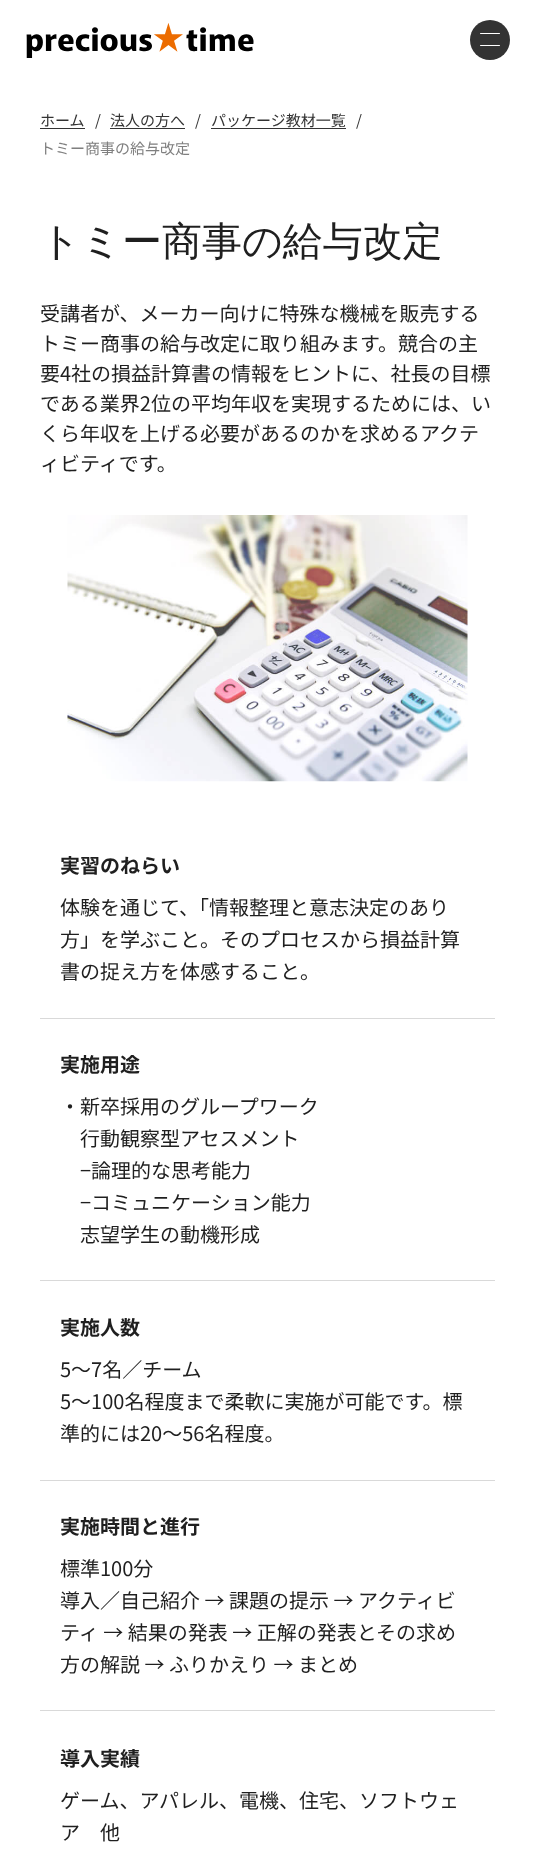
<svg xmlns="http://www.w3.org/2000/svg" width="534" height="1874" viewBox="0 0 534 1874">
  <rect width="100%" height="100%" fill="rgb(255,255,255)"/>
  <image x="26" y="23" width="228" height="35" href="pic1.png"/>
  <circle cx="490" cy="40" r="20" fill="rgb(51,51,51)"/>
  <rect x="480" y="33" width="20" height="1" rx="0.5" fill="rgb(255,255,255)"/>
  <rect x="480" y="45" width="20" height="1" rx="0.5" fill="rgb(255,255,255)"/>
  <text x="40" y="126" font-family="Noto Sans JP" font-size="15" fill="rgb(51,51,51)">ホーム</text>
  <rect x="40" y="128" width="45" height="1" fill="rgb(51,51,51)"/>
  <g font-family="Noto Sans JP" font-size="15" fill="rgb(51,51,51)">
    <text x="95" y="126">/</text>
    <text x="110" y="126">法人の方へ</text>
  </g>
  <rect x="110" y="128" width="75" height="1" fill="rgb(51,51,51)"/>
  <g font-family="Noto Sans JP" font-size="15" fill="rgb(51,51,51)">
    <text x="195" y="126">/</text>
    <text x="211" y="126">パッケージ教材一覧</text>
  </g>
  <rect x="211" y="128" width="135" height="1" fill="rgb(51,51,51)"/>
  <text x="356" y="126" font-family="Noto Sans JP" font-size="15" fill="rgb(51,51,51)">/</text>
  <text x="40" y="154" font-family="Noto Sans JP" font-size="15" fill="rgb(127,127,127)">トミー商事の給与改定</text>
  <text x="40" y="255" font-family="Noto Sans" font-size="40" font-weight="100" fill="rgb(31,31,31)">トミー商事の給与改定</text>
  <g font-family="Noto Sans JP" font-size="20" fill="rgb(31,31,31)">
    <text>
      <tspan x="40" y="321">受講者が、メーカー向けに特殊な機械を販売する</tspan>
      <tspan x="40" y="351">トミー商事の給与改定に取り組みます。競合の主</tspan>
      <tspan x="40" y="381">要4社の損益計算書の情報をヒントに、社長の目標</tspan>
      <tspan x="40" y="411">である業界2位の平均年収を実現するためには、い</tspan>
      <tspan x="40" y="441">くら年収を上げる必要があるのかを求めるアクテ</tspan>
      <tspan x="40" y="471">ィビティです。</tspan>
    </text>
  </g>
  <image x="67" y="515" width="401" height="267" href="pic2.png"/>
  <text x="60" y="873" font-family="Noto Sans JP" font-size="20" font-weight="bold" fill="rgb(31,31,31)">実習のねらい</text>
  <rect x="40" y="1018" width="455" height="1" fill="rgb(217,217,217)"/>
  <g font-family="Noto Sans JP" font-size="20" fill="rgb(31,31,31)">
    <text>
      <tspan x="60" y="915">体験を通じて、「情報整理と意志決定のあり</tspan>
      <tspan x="60" y="947">方」を学ぶこと。そのプロセスから損益計算</tspan>
      <tspan x="60" y="979">書の捉え方を体感すること。</tspan>
    </text>
  </g>
  <text x="60" y="1072" font-family="Noto Sans JP" font-size="20" font-weight="bold" fill="rgb(31,31,31)">実施用途</text>
  <rect x="40" y="1280" width="455" height="1" fill="rgb(217,217,217)"/>
  <g font-family="Noto Sans JP" font-size="20" fill="rgb(31,31,31)">
    <text x="60" y="1114">・新卒採用のグループワーク</text>
    <text>
      <tspan x="80" y="1146">行動観察型アセスメント</tspan>
      <tspan x="80" y="1178">−論理的な思考能力</tspan>
      <tspan x="80" y="1210">−コミュニケーション能力</tspan>
      <tspan x="80" y="1242">志望学生の動機形成</tspan>
    </text>
  </g>
  <text x="60" y="1335" font-family="Noto Sans JP" font-size="20" font-weight="bold" fill="rgb(31,31,31)">実施人数</text>
  <rect x="40" y="1480" width="455" height="1" fill="rgb(217,217,217)"/>
  <g font-family="Noto Sans JP" font-size="20" fill="rgb(31,31,31)">
    <text>
      <tspan x="60" y="1377">5～7名／チーム</tspan>
      <tspan x="60" y="1409">5～100名程度まで柔軟に実施が可能です。標</tspan>
      <tspan x="60" y="1441">準的には20～56名程度。</tspan>
    </text>
  </g>
  <text x="60" y="1534" font-family="Noto Sans JP" font-size="20" font-weight="bold" fill="rgb(31,31,31)">実施時間と進行</text>
  <rect x="40" y="1710" width="455" height="1" fill="rgb(217,217,217)"/>
  <g font-family="Noto Sans JP" font-size="20" fill="rgb(31,31,31)">
    <text>
      <tspan x="60" y="1576">標準100分</tspan>
      <tspan x="60" y="1608">導入／自己紹介 → 課題の提示 → アクティビ</tspan>
      <tspan x="60" y="1640">ティ → 結果の発表 → 正解の発表とその求め</tspan>
      <tspan x="60" y="1672">方の解説 → ふりかえり → まとめ</tspan>
    </text>
  </g>
  <text x="60" y="1766" font-family="Noto Sans JP" font-size="20" font-weight="bold" fill="rgb(31,31,31)">導入実績</text>
  <g font-family="Noto Sans JP" font-size="20" fill="rgb(31,31,31)">
    <text>
      <tspan x="60" y="1808">ゲーム、アパレル、電機、住宅、ソフトウェ</tspan>
      <tspan x="60" y="1840">ア　他</tspan>
    </text>
  </g>
</svg>
